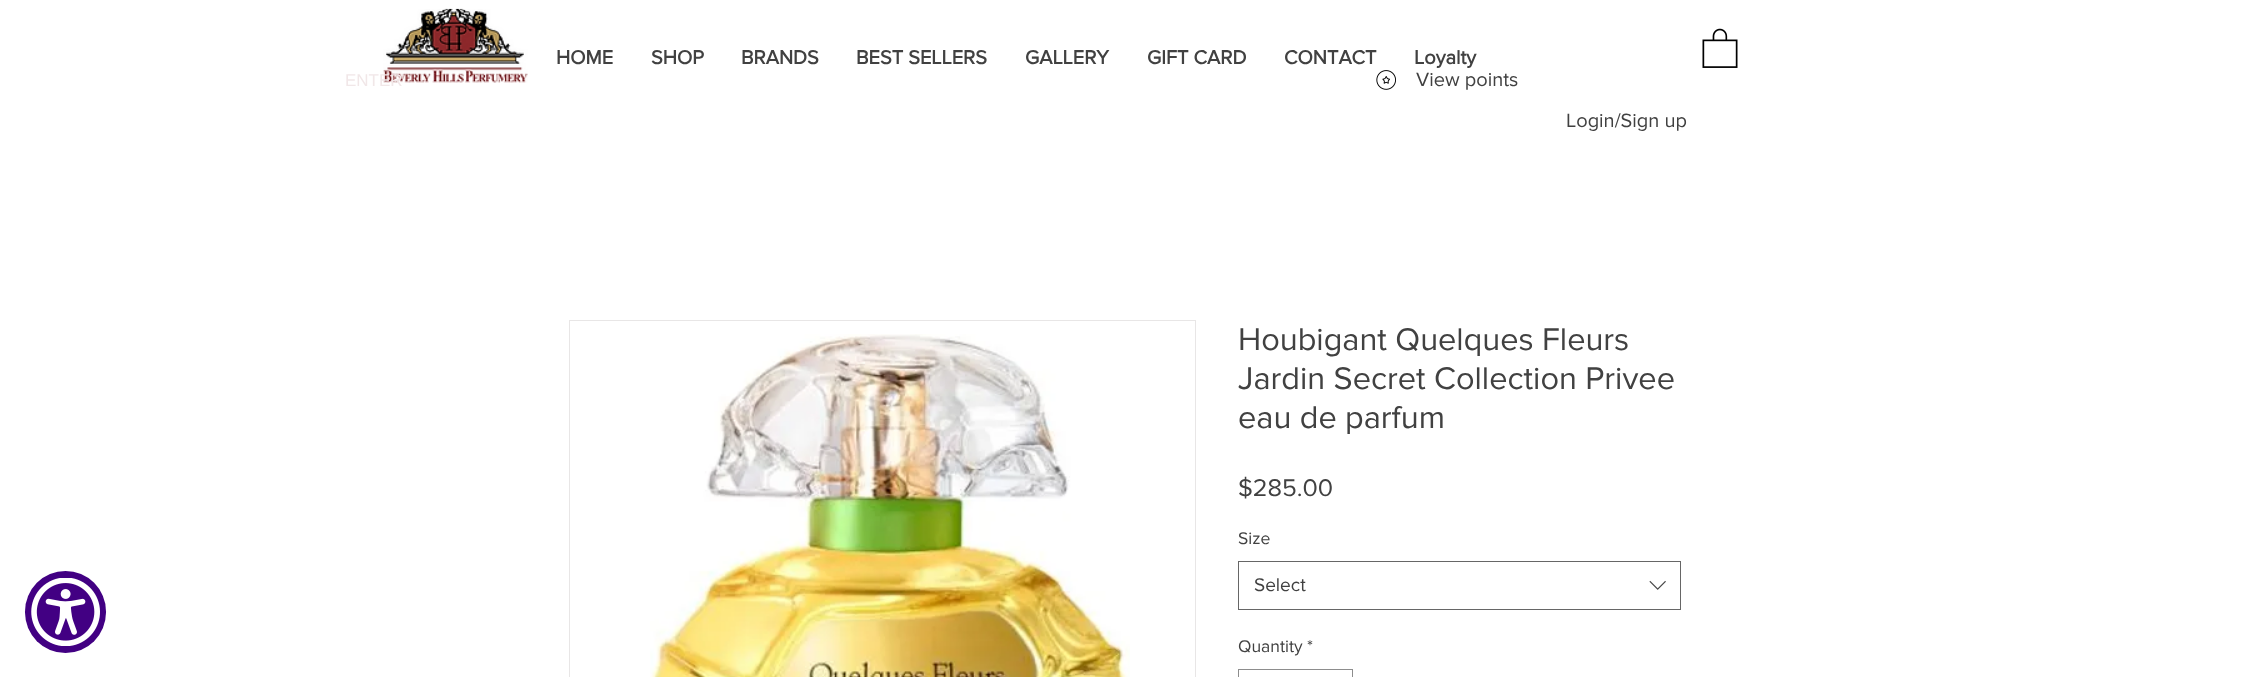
<svg xmlns="http://www.w3.org/2000/svg" width="2250" height="677" viewBox="0 0 2250 677">
  <rect width="100%" height="100%" fill="rgb(255,255,255)"/>
  <image x="383" y="8" width="145" height="75" href="pic2.png"/>
  <text x="345" y="86" font-family="Liberation Sans" font-size="17" fill="rgb(241,231,232)">ENTER</text>
  <rect x="25" y="571" width="81" height="82" rx="40.5" fill="rgb(66,0,131)"/>
  <image x="31" y="578" width="69" height="68" href="pic1.png"/>
  <g font-family="'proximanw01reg'" font-size="20" font-weight="bold" fill="rgb(65,65,65)">
    <text x="556" y="64">HOME</text>
    <text x="651" y="64">SHOP</text>
    <text x="741" y="64">BRANDS</text>
    <text x="856" y="64">BEST SELLERS</text>
    <text x="1025" y="64">GALLERY</text>
    <text x="1147" y="64">GIFT CARD</text>
    <text x="1284" y="64">CONTACT</text>
    <text x="1414" y="64">Loyalty</text>
  </g>
  <image x="1702" y="28" width="36" height="40" href="pic3.png"/>
  <image x="1376" y="70" width="20" height="20" href="pic4.png"/>
  <g font-family="'proximanw01reg'" font-size="20" fill="rgb(65,65,65)">
    <text x="1416" y="86">View points</text>
    <text x="1566" y="127">Login/Sign up</text>
  </g>
  <rect x="569.5" y="320.5" width="626" height="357" fill="none" stroke="rgb(232,230,230)"/>
  <image x="650" y="334" width="480" height="343" href="pic5.png"/>
  <g font-family="'proximanw01reg'" font-size="32.5" fill="rgb(65,65,65)">
    <text>
      <tspan x="1238" y="350">Houbigant Quelques Fleurs</tspan>
      <tspan x="1238" y="389">Jardin Secret Collection Privee</tspan>
      <tspan x="1238" y="428">eau de parfum</tspan>
    </text>
  </g>
  <text x="1238" y="496" font-family="'proximanw01reg'" font-size="25" fill="rgb(65,65,65)">$285.00</text>
  <text x="1238" y="544" font-family="'proximanw01reg'" font-size="17.5" fill="rgb(65,65,65)">Size</text>
  <rect x="1238.5" y="561.5" width="442" height="48" fill="none" stroke="rgb(102,102,102)"/>
  <text x="1254" y="591" font-family="'proximanw01reg'" font-size="19" fill="rgb(65,65,65)">Select</text>
  <image x="1649" y="580" width="17" height="10" href="pic6.png"/>
  <g font-family="'proximanw01reg'" font-size="17.5" fill="rgb(65,65,65)">
    <text x="1238" y="652">Quantity</text>
    <text x="1307" y="652">*</text>
  </g>
  <rect x="1238.5" y="669.5" width="114" height="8" fill="none" stroke="rgb(141,141,141)"/>
</svg>
